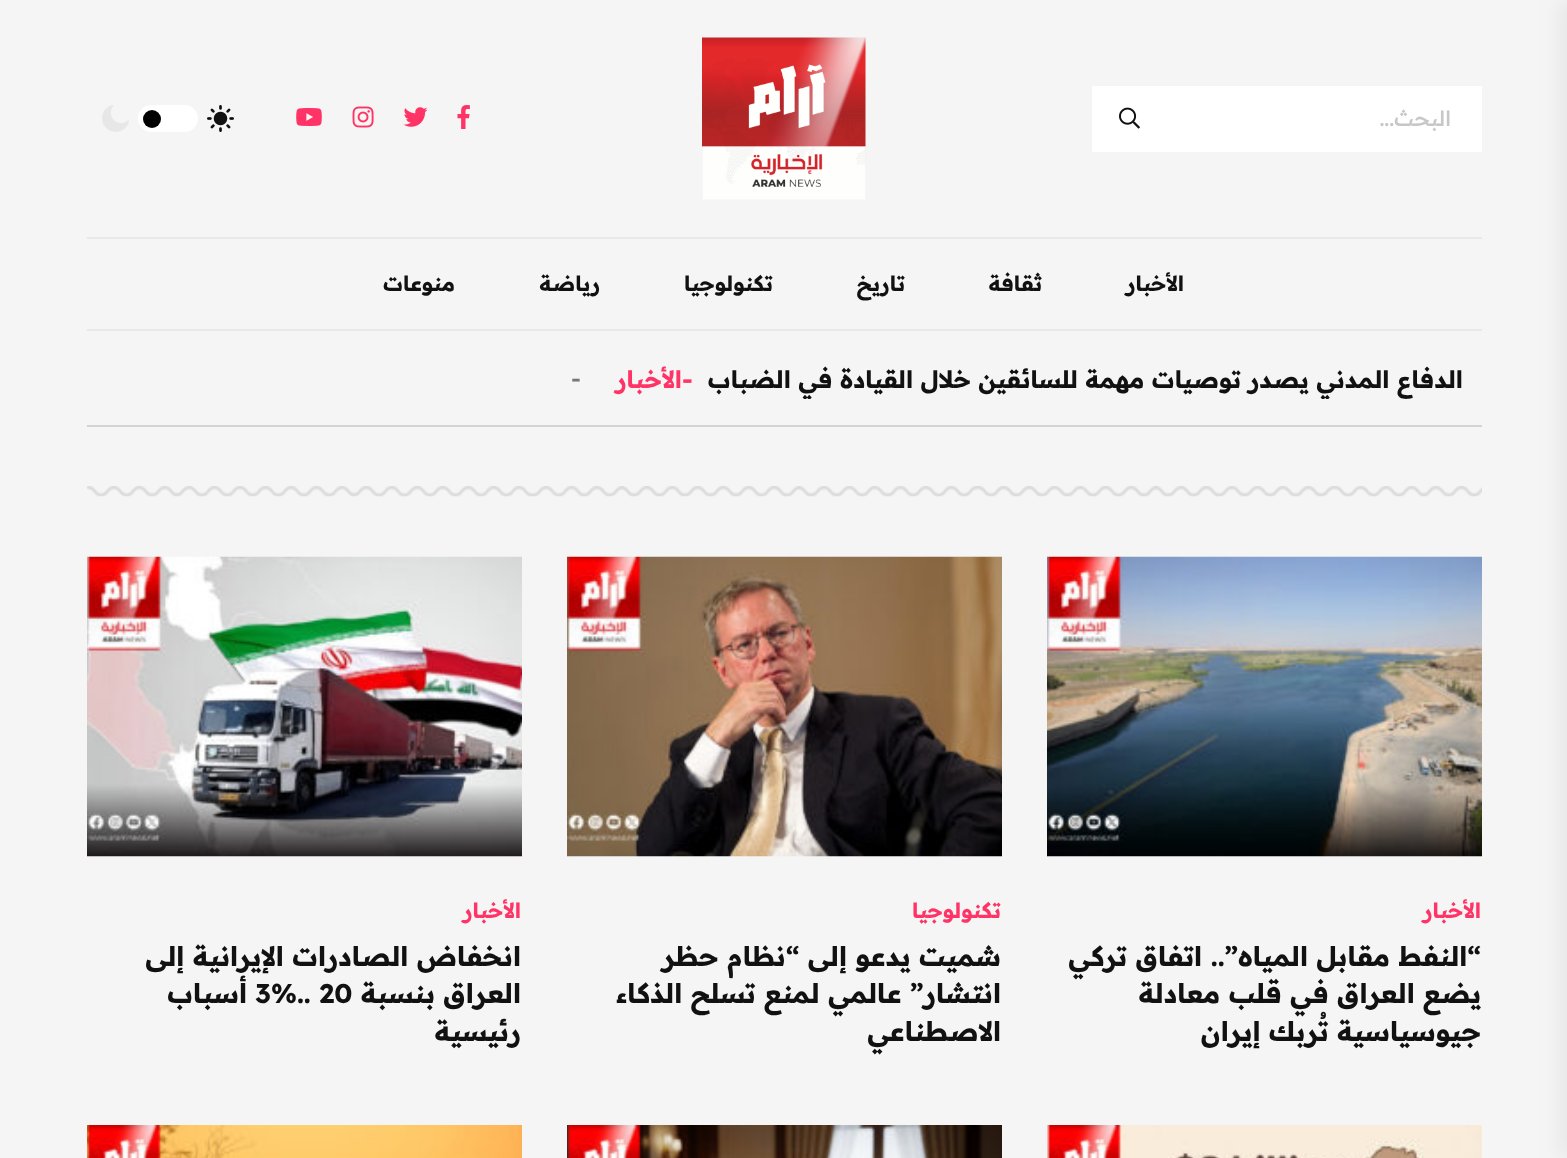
<svg xmlns="http://www.w3.org/2000/svg" width="1567" height="1158" viewBox="0 0 1567 1158">
  <defs>
    <clipPath id="clip1"><rect x="87" y="360" width="1395" height="39"/></clipPath>
  </defs>
  <rect width="100%" height="100%" fill="rgb(245,245,245)"/>
  <rect x="1092" y="86" width="390" height="66" fill="rgb(255,255,255)"/>
  <text x="1451" y="126" font-family="Readex Pro" font-size="21" font-weight="500" direction="rtl" fill="rgb(199,199,199)">البحث...</text>
  <image x="1119" y="107" width="21" height="22" href="pic1.png"/>
  <image x="702" y="37" width="164" height="163" href="pic2.png"/>
  <image x="457" y="105" width="13" height="24" href="pic3.png"/>
  <image x="403" y="107" width="25" height="20" href="pic4.png"/>
  <image x="352" y="106" width="22" height="22" href="pic5.png"/>
  <image x="296" y="108" width="26" height="18" href="pic6.png"/>
  <image x="207" y="105" width="27" height="27" href="pic7.png"/>
  <rect x="138" y="105" width="60" height="27" rx="13.5" fill="rgb(255,255,255)"/>
  <circle cx="152" cy="119" r="9" fill="rgb(0,0,0)"/>
  <image x="102" y="105" width="27" height="27" href="pic8.png"/>
  <rect x="1559" y="0" width="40" height="1158" fill="rgba(0,0,0,0.06)" filter="blur(10.5px)"/>
  <rect x="87" y="237" width="1395" height="2" fill="rgb(232,232,232)"/>
  <rect x="87" y="329" width="1395" height="2" fill="rgb(232,232,232)"/>
  <g font-family="Readex Pro" font-size="21" font-weight="bold" direction="rtl" fill="rgb(17,17,17)">
    <text x="1184" y="291">الأخبار</text>
    <text x="1042" y="291">ثقافة</text>
    <text x="905" y="291">تاريخ</text>
    <text x="773" y="291">تكنولوجيا</text>
    <text x="600" y="291">رياضة</text>
    <text x="455" y="291">منوعات</text>
  </g>
  <g clip-path="url(#clip1)">
    <text x="1463" y="388" font-family="Readex Pro" font-size="24" font-weight="bold" direction="rtl" fill="rgb(17,17,17)">الدفاع المدني يصدر توصيات مهمة للسائقين خلال القيادة في الضباب</text>
  </g>
  <text x="682" y="388" font-family="Readex Pro" font-size="24" font-weight="bold" fill="rgb(255,51,102)">-</text>
  <text x="682" y="388" font-family="Readex Pro" font-size="24" font-weight="bold" direction="rtl" fill="rgb(255,51,102)">الأخبار</text>
  <text x="571" y="387" font-family="Readex Pro" font-size="24" font-weight="500" fill="rgb(119,119,119)">-</text>
  <rect x="87" y="425" width="1395" height="2" fill="rgb(211,211,211)"/>
  <image x="87" y="486" width="1395" height="11" href="pic9.png"/>
  <image x="1047" y="556" width="435" height="301" href="pic10.png"/>
  <text x="1481" y="918" font-family="Readex Pro" font-size="21" font-weight="bold" direction="rtl" fill="rgb(255,51,102)">الأخبار</text>
  <g font-family="Readex Pro" font-size="27" font-weight="bold" direction="rtl" fill="rgb(17,17,17)">
    <text>
      <tspan x="1481" y="966">“النفط مقابل المياه”.. اتفاق تركي</tspan>
      <tspan x="1481" y="1003">يضع العراق في قلب معادلة</tspan>
      <tspan x="1481" y="1041">جيوسياسية تُربك إيران</tspan>
    </text>
  </g>
  <image x="567" y="556" width="435" height="301" href="pic11.png"/>
  <text x="1001" y="918" font-family="Readex Pro" font-size="21" font-weight="bold" direction="rtl" fill="rgb(255,51,102)">تكنولوجيا</text>
  <g font-family="Readex Pro" font-size="27" font-weight="bold" direction="rtl" fill="rgb(17,17,17)">
    <text>
      <tspan x="1001" y="966">شميت يدعو إلى “نظام حظر</tspan>
      <tspan x="1001" y="1003">انتشار” عالمي لمنع تسلح الذكاء</tspan>
      <tspan x="1001" y="1041">الاصطناعي</tspan>
    </text>
  </g>
  <image x="87" y="556" width="435" height="301" href="pic12.png"/>
  <text x="521" y="918" font-family="Readex Pro" font-size="21" font-weight="bold" direction="rtl" fill="rgb(255,51,102)">الأخبار</text>
  <g font-family="Readex Pro" font-size="27" font-weight="bold" direction="rtl" fill="rgb(17,17,17)">
    <text>
      <tspan x="521" y="966">انخفاض الصادرات الإيرانية إلى</tspan>
      <tspan x="521" y="1003">العراق بنسبة</tspan>
    </text>
  </g>
  <text x="255" y="1003" font-family="Readex Pro" font-size="27" font-weight="bold" fill="rgb(17,17,17)">3%.. 20</text>
  <g font-family="Readex Pro" font-size="27" font-weight="bold" direction="rtl" fill="rgb(17,17,17)">
    <text x="247" y="1003">أسباب</text>
    <text x="521" y="1041">رئيسية</text>
  </g>
  <image x="1047" y="1125" width="435" height="33" href="pic13.png"/>
  <image x="567" y="1125" width="435" height="33" href="pic14.png"/>
  <image x="87" y="1125" width="435" height="33" href="pic15.png"/>
</svg>
